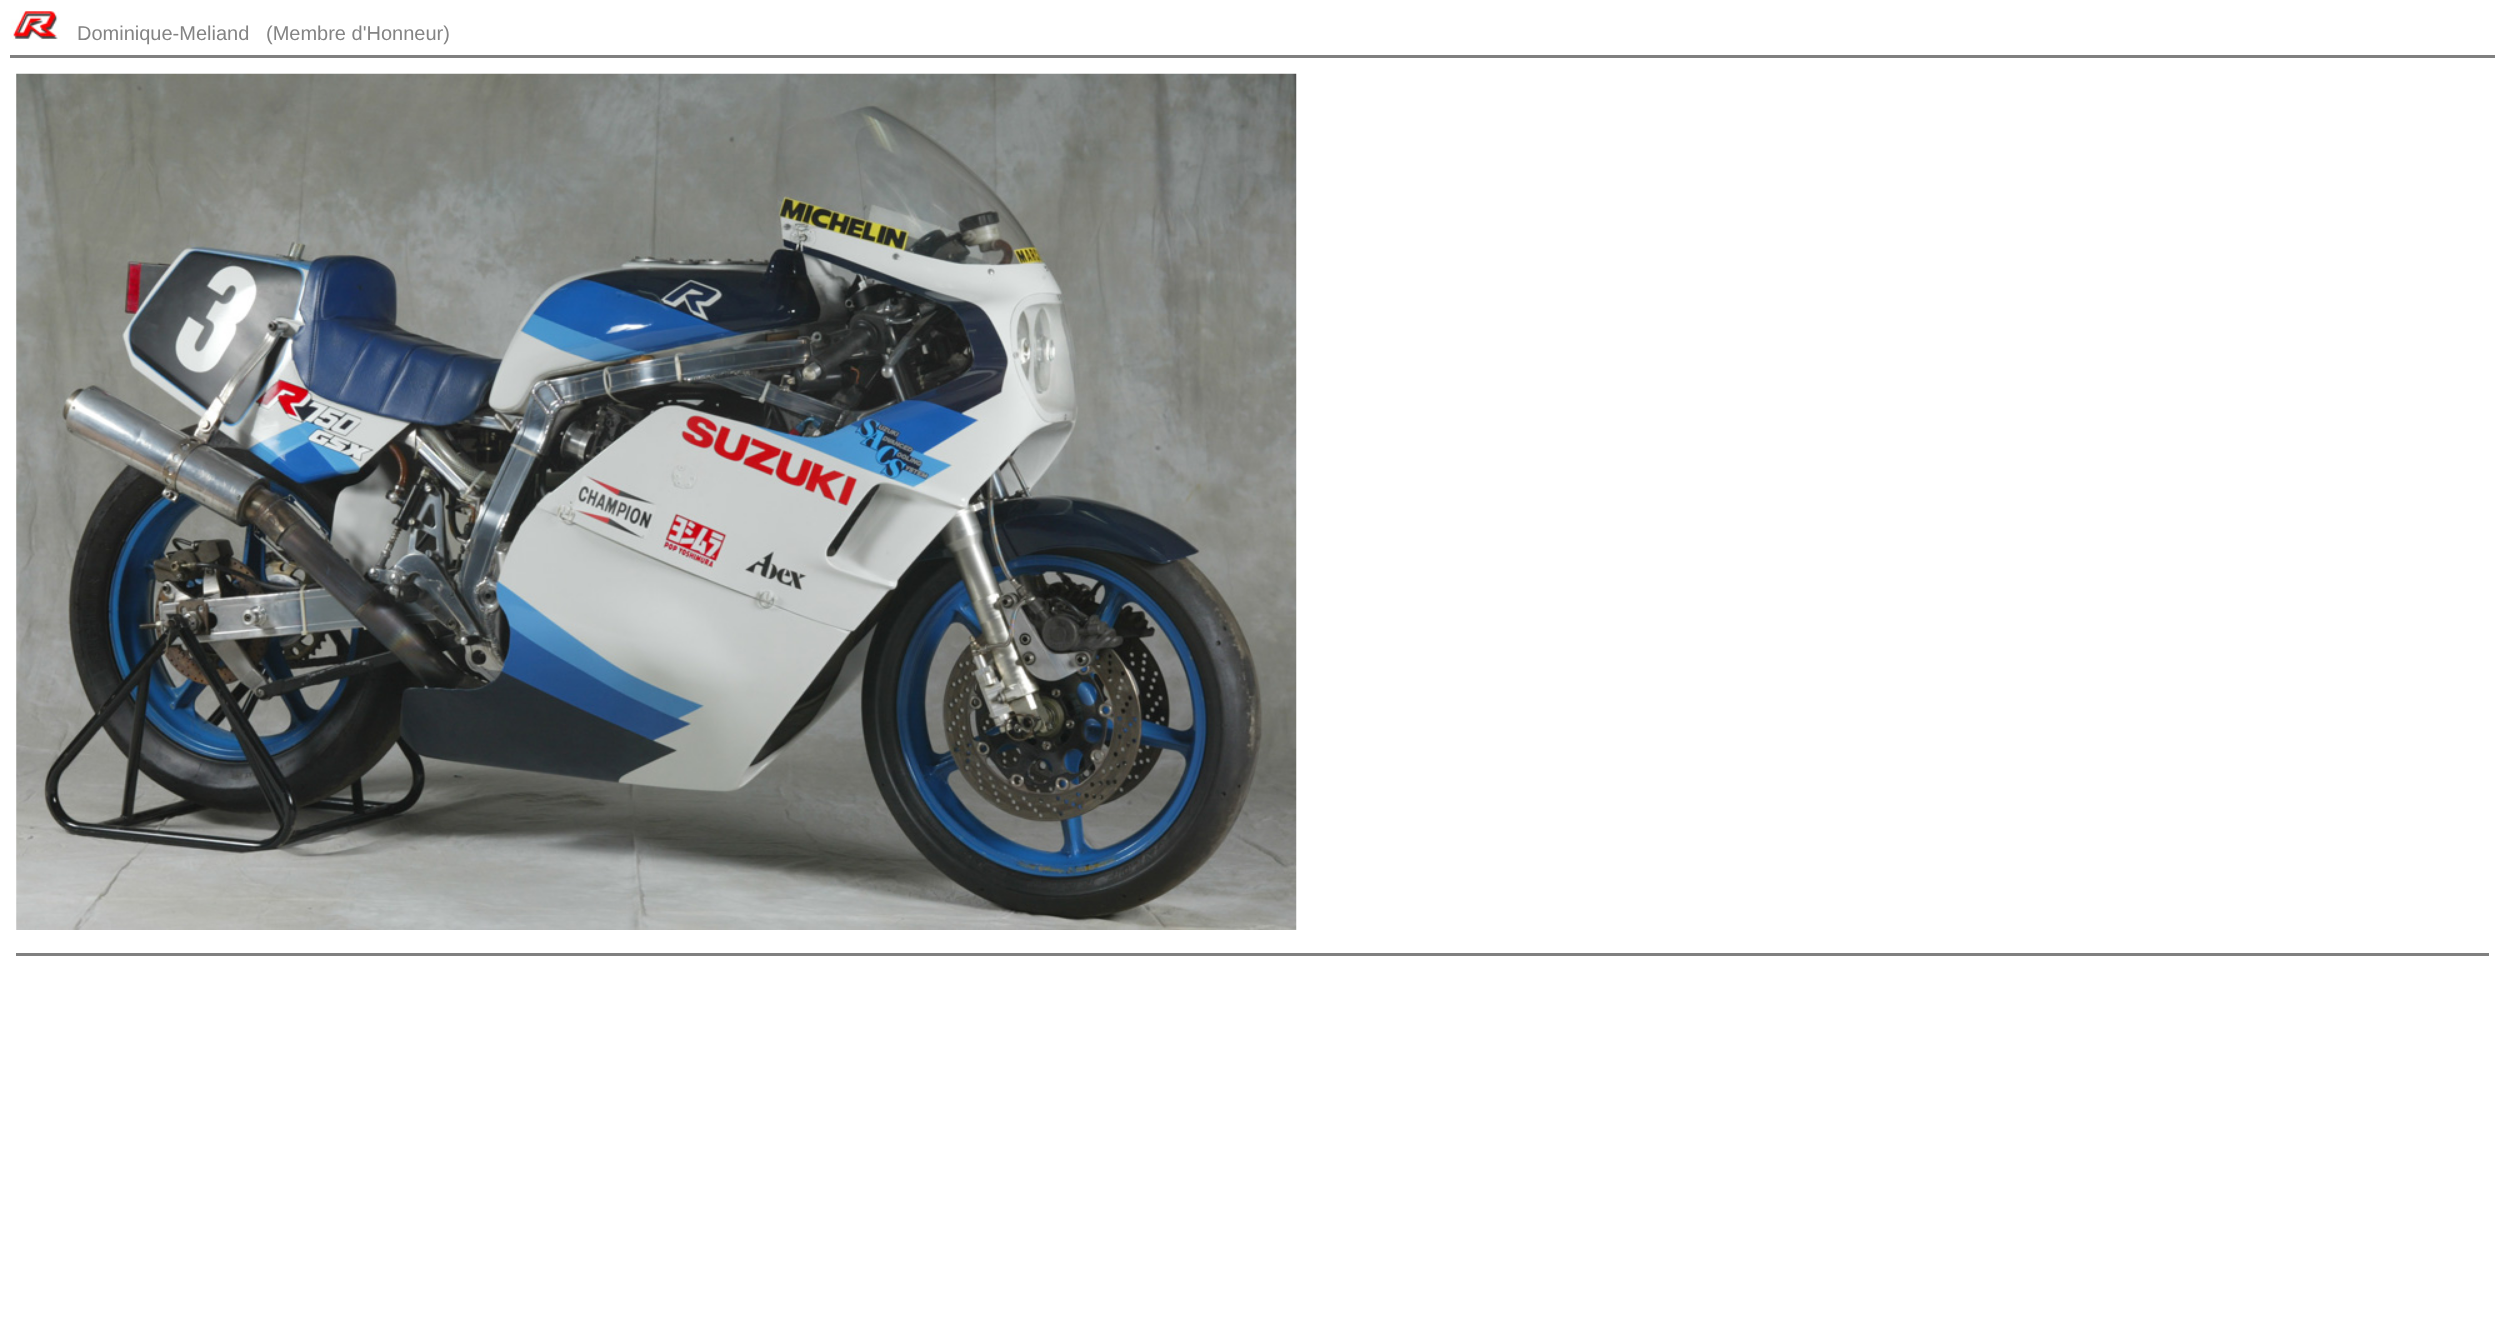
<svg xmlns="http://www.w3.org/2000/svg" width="2504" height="1334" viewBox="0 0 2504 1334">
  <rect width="100%" height="100%" fill="rgb(255,255,255)"/>
  <image x="10" y="10" width="50" height="30" href="pic1.png"/>
  <text x="77" y="40" font-family="Liberation Sans" font-size="20" fill="rgb(132,132,132)" xml:space="preserve">Dominique-Meliand   (Membre d'Honneur)</text>
  <rect x="10" y="55" width="2485" height="3" fill="rgb(128,128,128)"/>
  <image x="16" y="73" width="1281" height="857" href="pic2.png"/>
  <rect x="16" y="953" width="2473" height="3" fill="rgb(128,128,128)"/>
</svg>
